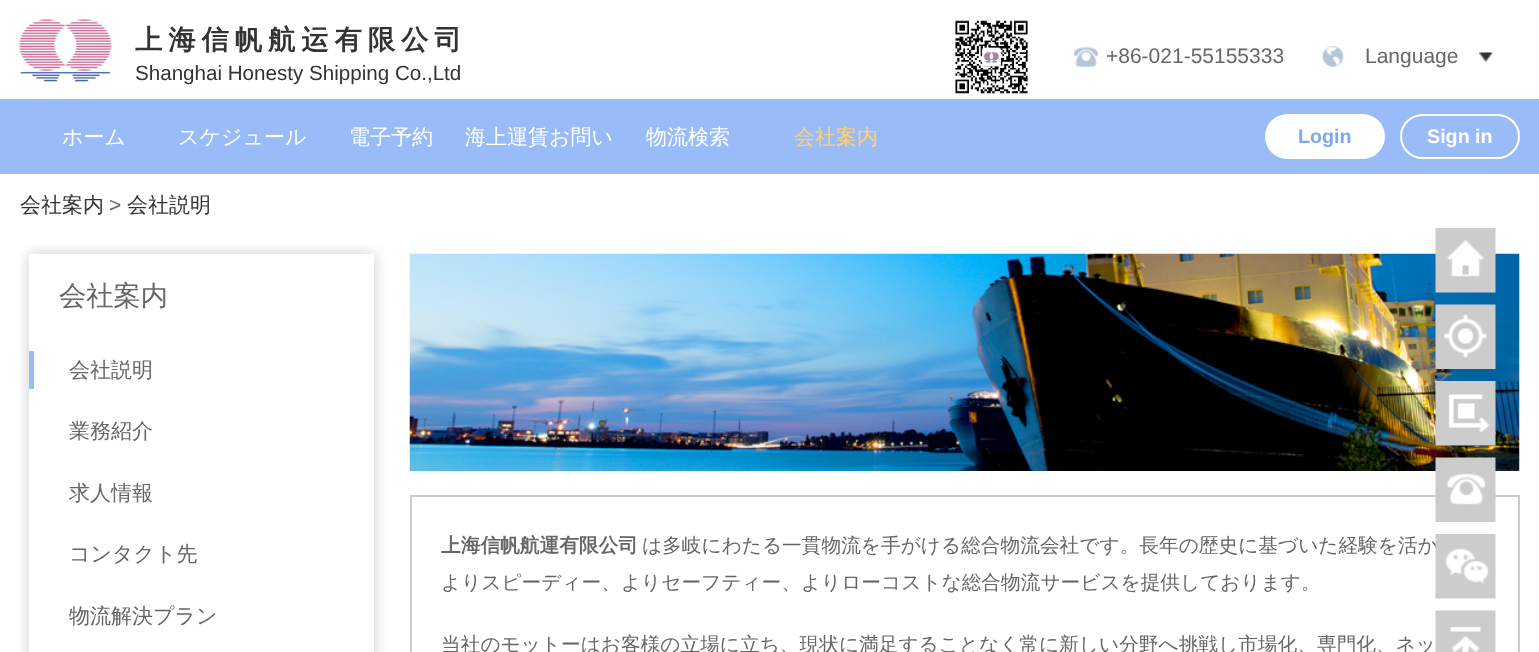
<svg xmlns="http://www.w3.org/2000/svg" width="1539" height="652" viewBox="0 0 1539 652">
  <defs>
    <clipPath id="clip1"><rect x="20" y="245" width="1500" height="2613"/></clipPath>
  </defs>
  <rect width="100%" height="100%" fill="rgb(255,255,255)"/>
  <image x="19" y="19" width="93" height="63" href="pic1.png"/>
  <text x="135" y="49" font-family="WenQuanYi Zen Hei" font-size="27.25" font-weight="bold" letter-spacing="6" fill="rgb(51,51,51)">上海信帆航运有限公司</text>
  <text x="135" y="80" font-family="Liberation Sans" font-size="20.6" fill="rgb(51,51,51)">Shanghai Honesty Shipping Co.,Ltd</text>
  <image x="955" y="20" width="73" height="74" href="pic2.png"/>
  <image x="1074" y="47" width="24" height="20" href="pic3.png"/>
  <text x="1106" y="63" font-family="Liberation Sans" font-size="21" fill="rgb(102,102,102)">+86-021-55155333</text>
  <image x="1322" y="46" width="22" height="21" href="pic4.png"/>
  <text x="1365" y="63" font-family="Liberation Sans" font-size="21" fill="rgb(102,102,102)">Language</text>
  <image x="1479" y="52" width="14" height="10" href="pic5.png"/>
  <rect x="0" y="99" width="1539" height="75" fill="rgb(153,188,249)"/>
  <g font-family="WenQuanYi Zen Hei" font-size="21" font-weight="500" fill="rgb(255,255,255)">
    <text x="62" y="144">ホーム</text>
    <text x="178" y="144">スケジュール</text>
    <text x="349" y="144">電子予約</text>
    <text x="465" y="144">海上運賃お問い</text>
    <text x="646" y="144">物流検索</text>
  </g>
  <text x="794" y="144" font-family="WenQuanYi Zen Hei" font-size="21" font-weight="500" fill="rgb(255,210,113)">会社案内</text>
  <rect x="1265" y="114" width="120" height="45" rx="22.5" fill="rgb(255,255,255)"/>
  <text x="1298" y="143" font-family="Liberation Sans" font-size="19.7" font-weight="bold" fill="rgb(125,167,239)">Login</text>
  <rect x="1401" y="115" width="118" height="43" rx="21.5" fill="none" stroke="rgb(255,255,255)" stroke-width="2"/>
  <text x="1427" y="143" font-family="Liberation Sans" font-size="19.7" font-weight="bold" fill="rgb(255,255,255)">Sign in</text>
  <text x="20" y="212" font-family="WenQuanYi Zen Hei" font-size="21" font-weight="500" fill="rgb(51,51,51)">会社案内</text>
  <text x="109" y="212" font-family="Liberation Sans" font-size="21" fill="rgb(102,102,102)">&gt;</text>
  <text x="127" y="212" font-family="WenQuanYi Zen Hei" font-size="21" font-weight="500" fill="rgb(51,51,51)">会社説明</text>
  <g clip-path="url(#clip1)">
    <rect x="29" y="254" width="345" height="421" fill="rgb(204,204,204)" filter="blur(7.5px)"/>
  </g>
  <rect x="29" y="254" width="345" height="398" fill="rgb(255,255,255)"/>
  <text x="59" y="305" font-family="WenQuanYi Zen Hei" font-size="27.25" font-weight="500" fill="rgb(102,102,102)">会社案内</text>
  <rect x="29" y="351" width="5" height="38" fill="rgb(152,189,245)"/>
  <g font-family="WenQuanYi Zen Hei" font-size="21" font-weight="500" fill="rgb(102,102,102)">
    <text x="69" y="377">会社説明</text>
    <text x="69" y="438">業務紹介</text>
    <text x="69" y="500">求人情報</text>
    <text x="69" y="561">コンタクト先</text>
    <text x="69" y="623">物流解決プラン</text>
  </g>
  <image x="409" y="253" width="1111" height="218" href="pic6.png"/>
  <rect x="411" y="496" width="1108" height="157" fill="none" stroke="rgb(204,204,204)" stroke-width="2"/>
  <text x="441" y="552" font-family="WenQuanYi Zen Hei" font-size="19.7" font-weight="bold" fill="rgb(102,102,102)">上海信帆航運有限公司</text>
  <g font-family="WenQuanYi Zen Hei" font-size="19.7" font-weight="500" fill="rgb(102,102,102)">
    <text x="642" y="552">は多岐にわたる一貫物流を手がける総合物流会社です。長年の歴史に基づいた経験を活か</text>
    <text x="441" y="589">よりスピーディー、よりセーフティー、よりローコストな総合物流サービスを提供しております。</text>
    <text x="441" y="651">当社のモットーはお客様の立場に立ち、現状に満足することなく常に新しい分野へ挑戦し市場化、専門化、ネッ</text>
  </g>
  <image x="1435" y="228" width="61" height="65" href="pic7.png"/>
  <image x="1435" y="304" width="61" height="65" href="pic8.png"/>
  <image x="1435" y="381" width="61" height="65" href="pic9.png"/>
  <image x="1435" y="457" width="61" height="65" href="pic10.png"/>
  <image x="1435" y="534" width="61" height="65" href="pic11.png"/>
  <image x="1435" y="610" width="61" height="42" href="pic12.png"/>
</svg>
